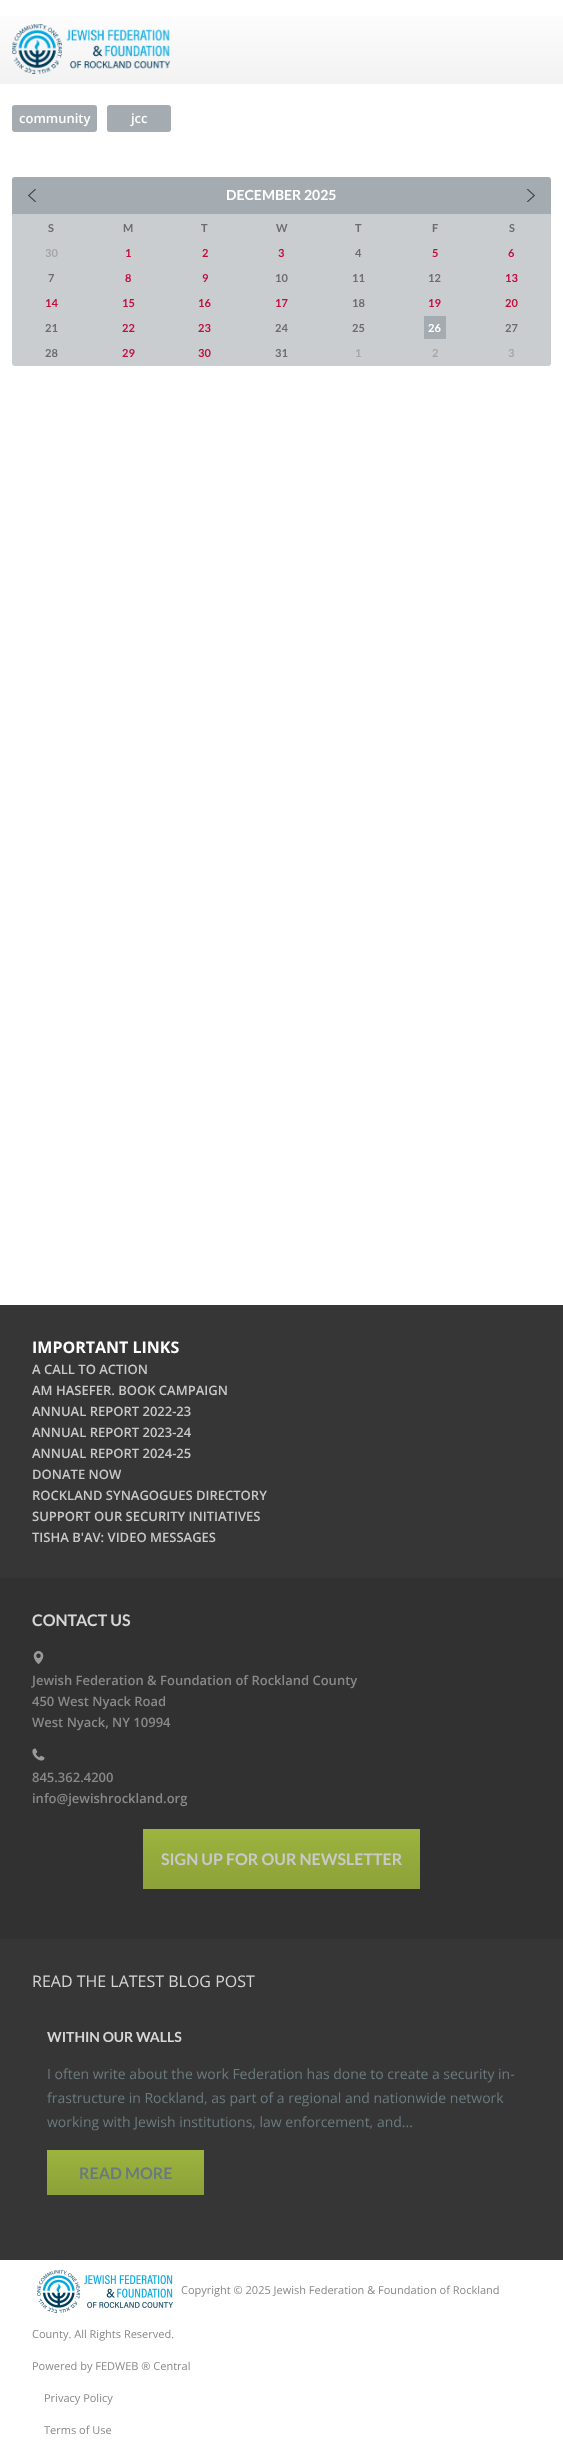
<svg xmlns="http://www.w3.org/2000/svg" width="563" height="2451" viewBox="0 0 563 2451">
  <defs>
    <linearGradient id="g1" gradientUnits="userSpaceOnUse" x1="282" y1="0" x2="282" y2="84"><stop offset="0" stop-color="rgb(255,255,255)"/><stop offset="1" stop-color="rgb(242,242,242)"/></linearGradient>
    <linearGradient id="g2" gradientUnits="userSpaceOnUse" x1="282" y1="1829" x2="282" y2="1889"><stop offset="0" stop-color="rgb(156,180,63)"/><stop offset="1" stop-color="rgb(140,161,56)"/></linearGradient>
    <linearGradient id="g3" gradientUnits="userSpaceOnUse" x1="126" y1="2150" x2="126" y2="2195"><stop offset="0" stop-color="rgb(156,180,63)"/><stop offset="1" stop-color="rgb(140,161,56)"/></linearGradient>
  </defs>
  <rect width="100%" height="100%" fill="rgb(255,255,255)"/>
  <rect x="0" y="16" width="563" height="68" fill="url(#g1)"/>
  <image x="12" y="24" width="158" height="50" href="pic1.png"/>
  <rect x="12" y="105" width="85" height="27" rx="3" fill="rgb(164,172,177)"/>
  <text x="19" y="123" font-family="Open Sans" font-size="13" font-weight="600" fill="rgb(255,255,255)">community</text>
  <rect x="107" y="105" width="64" height="27" rx="3" fill="rgb(164,172,177)"/>
  <text x="131" y="123" font-family="Open Sans" font-size="13" font-weight="600" fill="rgb(255,255,255)">jcc</text>
  <rect x="12" y="177" width="539" height="189" rx="3" fill="rgb(202,205,207)"/>
  <path d="M15 177H548C549.5 177 551 178.5 551 180V214H12V180C12 178.5 13.5 177 15 177Z" fill="rgb(164,172,177)"/>
  <image x="28" y="189" width="9" height="13" href="pic2.png"/>
  <text x="226" y="200" font-family="Lato" font-size="14" font-weight="bold" fill="rgb(255,255,255)">DECEMBER 2025</text>
  <image x="526" y="189" width="9" height="13" href="pic3.png"/>
  <g font-family="Lato" font-size="11" font-weight="bold" fill="rgb(108,108,108)">
    <text x="48" y="232">S</text>
    <text x="123" y="232">M</text>
    <text x="201" y="232">T</text>
    <text x="276" y="232">W</text>
    <text x="355" y="232">T</text>
    <text x="432" y="232">F</text>
    <text x="509" y="232">S</text>
  </g>
  <text x="45" y="257" font-family="Lato" font-size="11" font-weight="bold" fill="rgb(166,166,166)">30</text>
  <g font-family="Lato" font-size="11" font-weight="bold" fill="rgb(193,15,62)">
    <text x="125" y="257">1</text>
    <text x="202" y="257">2</text>
    <text x="278" y="257">3</text>
  </g>
  <text x="355" y="257" font-family="Lato" font-size="11" font-weight="bold" fill="rgb(108,108,108)">4</text>
  <g font-family="Lato" font-size="11" font-weight="bold" fill="rgb(193,15,62)">
    <text x="432" y="257">5</text>
    <text x="508" y="257">6</text>
  </g>
  <text x="48" y="282" font-family="Lato" font-size="11" font-weight="bold" fill="rgb(108,108,108)">7</text>
  <g font-family="Lato" font-size="11" font-weight="bold" fill="rgb(193,15,62)">
    <text x="125" y="282">8</text>
    <text x="202" y="282">9</text>
  </g>
  <g font-family="Lato" font-size="11" font-weight="bold" fill="rgb(108,108,108)">
    <text x="275" y="282">10</text>
    <text x="352" y="282">11</text>
    <text x="428" y="282">12</text>
  </g>
  <g font-family="Lato" font-size="11" font-weight="bold" fill="rgb(193,15,62)">
    <text x="505" y="282">13</text>
    <text x="45" y="307">14</text>
    <text x="122" y="307">15</text>
    <text x="198" y="307">16</text>
    <text x="275" y="307">17</text>
  </g>
  <text x="352" y="307" font-family="Lato" font-size="11" font-weight="bold" fill="rgb(108,108,108)">18</text>
  <g font-family="Lato" font-size="11" font-weight="bold" fill="rgb(193,15,62)">
    <text x="428" y="307">19</text>
    <text x="505" y="307">20</text>
  </g>
  <text x="45" y="332" font-family="Lato" font-size="11" font-weight="bold" fill="rgb(108,108,108)">21</text>
  <g font-family="Lato" font-size="11" font-weight="bold" fill="rgb(193,15,62)">
    <text x="122" y="332">22</text>
    <text x="198" y="332">23</text>
  </g>
  <g font-family="Lato" font-size="11" font-weight="bold" fill="rgb(108,108,108)">
    <text x="275" y="332">24</text>
    <text x="352" y="332">25</text>
  </g>
  <rect x="424" y="316" width="22" height="23" fill="rgb(164,172,177)"/>
  <text x="428" y="332" font-family="Lato" font-size="11" font-weight="bold" fill="rgb(255,255,255)">26</text>
  <g font-family="Lato" font-size="11" font-weight="bold" fill="rgb(108,108,108)">
    <text x="505" y="332">27</text>
    <text x="45" y="357">28</text>
  </g>
  <g font-family="Lato" font-size="11" font-weight="bold" fill="rgb(193,15,62)">
    <text x="122" y="357">29</text>
    <text x="198" y="357">30</text>
  </g>
  <text x="275" y="357" font-family="Lato" font-size="11" font-weight="bold" fill="rgb(108,108,108)">31</text>
  <g font-family="Lato" font-size="11" font-weight="bold" fill="rgb(166,166,166)">
    <text x="355" y="357">1</text>
    <text x="432" y="357">2</text>
    <text x="508" y="357">3</text>
  </g>
  <rect x="0" y="1305" width="563" height="955" fill="rgb(54,54,54)"/>
  <text x="32" y="1353" font-family="Open Sans" font-size="16" font-weight="bold" fill="rgb(255,255,255)">IMPORTANT LINKS</text>
  <g font-family="Open Sans" font-size="13" font-weight="600" fill="rgb(201,201,201)">
    <text>
      <tspan x="32" y="1374">A CALL TO ACTION</tspan>
      <tspan x="32" y="1395">AM HASEFER. BOOK CAMPAIGN</tspan>
      <tspan x="32" y="1416">ANNUAL REPORT 2022-23</tspan>
      <tspan x="32" y="1437">ANNUAL REPORT 2023-24</tspan>
      <tspan x="32" y="1458">ANNUAL REPORT 2024-25</tspan>
      <tspan x="32" y="1479">DONATE NOW</tspan>
      <tspan x="32" y="1500">ROCKLAND SYNAGOGUES DIRECTORY</tspan>
      <tspan x="32" y="1521">SUPPORT OUR SECURITY INITIATIVES</tspan>
      <tspan x="32" y="1542">TISHA B'AV: VIDEO MESSAGES</tspan>
    </text>
  </g>
  <rect x="0" y="1578" width="563" height="361" fill="rgb(49,49,49)"/>
  <text x="32" y="1626" font-family="Lato" font-size="16" font-weight="bold" fill="rgb(214,214,214)">CONTACT US</text>
  <image x="33" y="1651" width="11" height="13" href="pic4.png"/>
  <g font-family="Open Sans" font-size="13" font-weight="600" fill="rgb(137,137,137)">
    <text>
      <tspan x="32" y="1685">Jewish Federation &amp; Foundation of Rockland County</tspan>
      <tspan x="32" y="1706">450 West Nyack Road</tspan>
      <tspan x="32" y="1727">West Nyack, NY 10994</tspan>
    </text>
  </g>
  <image x="32" y="1748" width="13" height="13" href="pic5.png"/>
  <g font-family="Open Sans" font-size="13" font-weight="600" fill="rgb(137,137,137)">
    <text>
      <tspan x="32" y="1782">845.362.4200</tspan>
      <tspan x="32" y="1803">info@jewishrockland.org</tspan>
    </text>
  </g>
  <rect x="143" y="1829" width="277" height="60" fill="url(#g2)"/>
  <text x="161" y="1865" font-family="Lato" font-size="16" font-weight="bold" fill="rgb(201,201,201)">SIGN UP FOR OUR NEWSLETTER</text>
  <text x="32" y="1987" font-family="Open Sans" font-size="16" fill="rgb(214,214,214)">READ THE LATEST BLOG POST</text>
  <text x="47" y="2042" font-family="Lato" font-size="14" font-weight="bold" fill="rgb(214,214,214)">WITHIN OUR WALLS</text>
  <g font-family="Open Sans" font-size="14" fill="rgb(107,122,126)">
    <text>
      <tspan x="47" y="2079">I often write about the work Federation has done to create a security in-</tspan>
      <tspan x="47" y="2103">frastructure in Rockland, as part of a regional and nationwide network</tspan>
      <tspan x="47" y="2127">working with Jewish institutions, law enforcement, and...</tspan>
    </text>
  </g>
  <rect x="47" y="2150" width="157" height="45" fill="url(#g3)"/>
  <text x="79" y="2179" font-family="Lato" font-size="16" font-weight="bold" fill="rgb(107,122,126)">READ MORE</text>
  <image x="37" y="2270" width="136" height="43" href="pic6.png"/>
  <g font-family="Open Sans" font-size="11" fill="rgb(137,137,137)">
    <text x="181" y="2294">Copyright © 2025 Jewish Federation &amp; Foundation of Rockland</text>
    <text x="32" y="2338">County. All Rights Reserved.</text>
    <text x="32" y="2370">Powered by FEDWEB ® Central</text>
    <text x="44" y="2402">Privacy Policy</text>
    <text x="44" y="2434">Terms of Use</text>
  </g>
</svg>
